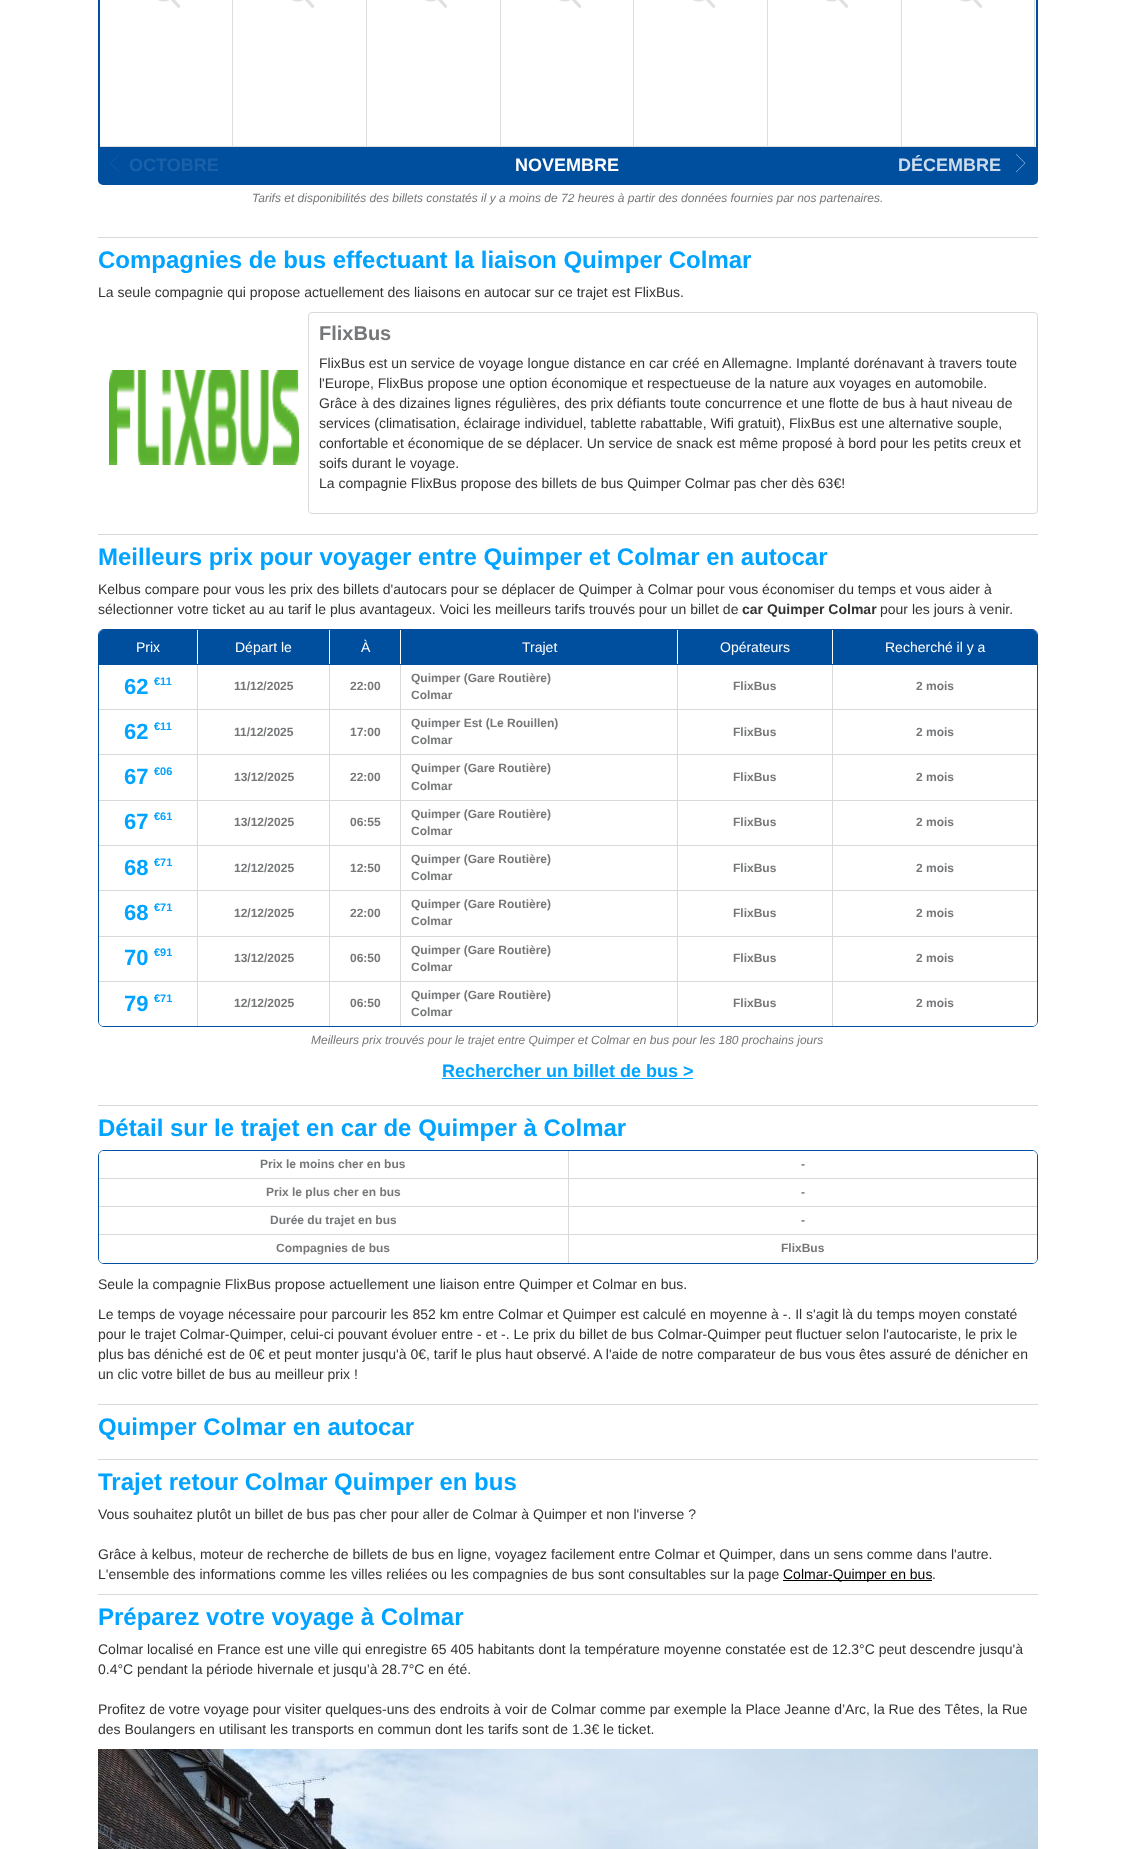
<svg xmlns="http://www.w3.org/2000/svg" width="1135" height="1849" viewBox="0 0 1135 1849">
  <rect width="100%" height="100%" fill="rgb(255,255,255)"/>
  <rect x="99" y="-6" width="938" height="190" rx="4" fill="none" stroke="rgb(0,79,159)" stroke-width="2"/>
  <rect x="232" y="0" width="1" height="147" fill="rgb(221,221,221)"/>
  <rect x="100" y="146" width="133" height="1" fill="rgb(221,221,221)"/>
  <image x="158" y="0" width="23" height="8" href="pic1.png"/>
  <rect x="366" y="0" width="1" height="147" fill="rgb(221,221,221)"/>
  <rect x="233" y="146" width="134" height="1" fill="rgb(221,221,221)"/>
  <image x="292" y="0" width="23" height="8" href="pic1.png"/>
  <rect x="500" y="0" width="1" height="147" fill="rgb(221,221,221)"/>
  <rect x="367" y="146" width="134" height="1" fill="rgb(221,221,221)"/>
  <image x="425" y="0" width="23" height="8" href="pic1.png"/>
  <rect x="633" y="0" width="1" height="147" fill="rgb(221,221,221)"/>
  <rect x="501" y="146" width="133" height="1" fill="rgb(221,221,221)"/>
  <image x="559" y="0" width="23" height="8" href="pic1.png"/>
  <rect x="767" y="0" width="1" height="147" fill="rgb(221,221,221)"/>
  <rect x="634" y="146" width="134" height="1" fill="rgb(221,221,221)"/>
  <image x="693" y="0" width="23" height="8" href="pic1.png"/>
  <rect x="901" y="0" width="1" height="147" fill="rgb(221,221,221)"/>
  <rect x="768" y="146" width="134" height="1" fill="rgb(221,221,221)"/>
  <image x="826" y="0" width="23" height="8" href="pic1.png"/>
  <rect x="1034" y="0" width="1" height="147" fill="rgb(221,221,221)"/>
  <rect x="902" y="146" width="133" height="1" fill="rgb(221,221,221)"/>
  <image x="960" y="0" width="23" height="8" href="pic1.png"/>
  <rect x="100" y="147" width="936" height="36" fill="rgb(0,79,159)"/>
  <image x="110" y="154" width="9" height="18" href="pic2.png"/>
  <text x="129" y="171" font-family="Liberation Sans" font-size="18" font-weight="bold" fill="rgb(26,97,169)">OCTOBRE</text>
  <text x="515" y="171" font-family="Liberation Sans" font-size="18" font-weight="bold" fill="rgb(255,255,255)">NOVEMBRE</text>
  <text x="898" y="171" font-family="Liberation Sans" font-size="18" font-weight="bold" fill="rgb(204,220,236)">DÉCEMBRE</text>
  <image x="1016" y="154" width="10" height="19" href="pic3.png"/>
  <text x="252" y="202" font-family="Liberation Sans" font-size="12" font-style="italic" fill="rgb(118,119,121)">Tarifs et disponibilités des billets constatés il y a moins de 72 heures à partir des données fournies par nos partenaires.</text>
  <rect x="98" y="237" width="940" height="1" fill="rgb(217,217,217)"/>
  <text x="98" y="268" font-family="Liberation Sans" font-size="24" font-weight="bold" fill="rgb(0,163,255)">Compagnies de bus effectuant la liaison Quimper Colmar</text>
  <text x="98" y="297" font-family="Liberation Sans" font-size="14" fill="rgb(51,51,51)">La seule compagnie qui propose actuellement des liaisons en autocar sur ce trajet est FlixBus.</text>
  <image x="109" y="370" width="190" height="95" href="pic4.png"/>
  <rect x="308.5" y="312.5" width="729" height="201" rx="3.5" fill="none" stroke="rgb(217,217,217)"/>
  <text x="319" y="340" font-family="Liberation Sans" font-size="20" font-weight="bold" fill="rgb(118,119,121)">FlixBus</text>
  <g font-family="Liberation Sans" font-size="14" fill="rgb(51,51,51)">
    <text>
      <tspan x="319" y="368">FlixBus est un service de voyage longue distance en car créé en Allemagne. Implanté dorénavant à travers toute</tspan>
      <tspan x="319" y="388">l'Europe, FlixBus propose une option économique et respectueuse de la nature aux voyages en automobile.</tspan>
      <tspan x="319" y="408">Grâce à des dizaines lignes régulières, des prix défiants toute concurrence et une flotte de bus à haut niveau de</tspan>
      <tspan x="319" y="428">services (climatisation, éclairage individuel, tablette rabattable, Wifi gratuit), FlixBus est une alternative souple,</tspan>
      <tspan x="319" y="448">confortable et économique de se déplacer. Un service de snack est même proposé à bord pour les petits creux et</tspan>
      <tspan x="319" y="468">soifs durant le voyage.</tspan>
      <tspan x="319" y="488">La compagnie FlixBus propose des billets de bus Quimper Colmar pas cher dès 63€!</tspan>
    </text>
  </g>
  <rect x="98" y="534" width="940" height="1" fill="rgb(217,217,217)"/>
  <text x="98" y="565" font-family="Liberation Sans" font-size="24" font-weight="bold" fill="rgb(0,163,255)">Meilleurs prix pour voyager entre Quimper et Colmar en autocar</text>
  <g font-family="Liberation Sans" font-size="14" fill="rgb(51,51,51)">
    <text>
      <tspan x="98" y="594">Kelbus compare pour vous les prix des billets d'autocars pour se déplacer de Quimper à Colmar pour vous économiser du temps et vous aider à</tspan>
      <tspan x="98" y="614">sélectionner votre ticket au au tarif le plus avantageux. Voici les meilleurs tarifs trouvés pour un billet de</tspan>
    </text>
  </g>
  <text x="742" y="614" font-family="Liberation Sans" font-size="14" font-weight="bold" fill="rgb(51,51,51)">car Quimper Colmar</text>
  <text x="880" y="614" font-family="Liberation Sans" font-size="14" fill="rgb(51,51,51)">pour les jours à venir.</text>
  <rect x="98.5" y="629.5" width="939" height="397" rx="5.5" fill="none" stroke="rgb(0,79,159)"/>
  <path d="M104 630H198V664H99V635C99 632 101 630 104 630Z" fill="rgb(0,79,159)"/>
  <rect x="832" y="709" width="205" height="1" fill="rgb(217,217,217)"/>
  <rect x="832" y="754" width="205" height="1" fill="rgb(217,217,217)"/>
  <rect x="832" y="800" width="205" height="1" fill="rgb(217,217,217)"/>
  <rect x="832" y="845" width="205" height="1" fill="rgb(217,217,217)"/>
  <rect x="832" y="890" width="205" height="1" fill="rgb(217,217,217)"/>
  <rect x="832" y="936" width="205" height="1" fill="rgb(217,217,217)"/>
  <path d="M99 981H1037V1021C1037 1024 1035 1026 1032 1026H104C101 1026 99 1024 99 1021Z" fill="rgb(255,255,255)"/>
  <rect x="832" y="981" width="205" height="1" fill="rgb(217,217,217)"/>
  <rect x="832" y="981" width="1" height="45" fill="rgb(217,217,217)"/>
  <rect x="677" y="981" width="156" height="1" fill="rgb(217,217,217)"/>
  <rect x="832" y="936" width="1" height="46" fill="rgb(217,217,217)"/>
  <rect x="677" y="936" width="156" height="1" fill="rgb(217,217,217)"/>
  <rect x="832" y="890" width="1" height="47" fill="rgb(217,217,217)"/>
  <rect x="677" y="890" width="156" height="1" fill="rgb(217,217,217)"/>
  <rect x="832" y="845" width="1" height="46" fill="rgb(217,217,217)"/>
  <rect x="677" y="845" width="156" height="1" fill="rgb(217,217,217)"/>
  <rect x="832" y="800" width="1" height="46" fill="rgb(217,217,217)"/>
  <rect x="677" y="800" width="156" height="1" fill="rgb(217,217,217)"/>
  <rect x="832" y="754" width="1" height="47" fill="rgb(217,217,217)"/>
  <rect x="677" y="754" width="156" height="1" fill="rgb(217,217,217)"/>
  <rect x="832" y="709" width="1" height="46" fill="rgb(217,217,217)"/>
  <rect x="677" y="709" width="156" height="1" fill="rgb(217,217,217)"/>
  <rect x="832" y="664" width="1" height="46" fill="rgb(217,217,217)"/>
  <rect x="832" y="664" width="205" height="1" fill="rgb(0,79,159)"/>
  <path d="M832 630H1032C1035 630 1037 632 1037 635V664H832Z" fill="rgb(0,79,159)"/>
  <rect x="832" y="630" width="1" height="35" fill="rgb(255,255,255)"/>
  <rect x="677" y="981" width="1" height="45" fill="rgb(217,217,217)"/>
  <rect x="400" y="981" width="278" height="1" fill="rgb(217,217,217)"/>
  <rect x="677" y="936" width="1" height="46" fill="rgb(217,217,217)"/>
  <rect x="400" y="936" width="278" height="1" fill="rgb(217,217,217)"/>
  <rect x="677" y="890" width="1" height="47" fill="rgb(217,217,217)"/>
  <rect x="400" y="890" width="278" height="1" fill="rgb(217,217,217)"/>
  <rect x="677" y="845" width="1" height="46" fill="rgb(217,217,217)"/>
  <rect x="400" y="845" width="278" height="1" fill="rgb(217,217,217)"/>
  <rect x="677" y="800" width="1" height="46" fill="rgb(217,217,217)"/>
  <rect x="400" y="800" width="278" height="1" fill="rgb(217,217,217)"/>
  <rect x="677" y="754" width="1" height="47" fill="rgb(217,217,217)"/>
  <rect x="400" y="754" width="278" height="1" fill="rgb(217,217,217)"/>
  <rect x="677" y="709" width="1" height="46" fill="rgb(217,217,217)"/>
  <rect x="400" y="709" width="278" height="1" fill="rgb(217,217,217)"/>
  <rect x="677" y="664" width="1" height="46" fill="rgb(217,217,217)"/>
  <rect x="677" y="664" width="156" height="1" fill="rgb(0,79,159)"/>
  <rect x="677" y="664" width="1" height="1" fill="rgb(255,255,255)"/>
  <rect x="400" y="981" width="1" height="45" fill="rgb(217,217,217)"/>
  <rect x="329" y="981" width="72" height="1" fill="rgb(217,217,217)"/>
  <rect x="400" y="936" width="1" height="46" fill="rgb(217,217,217)"/>
  <rect x="329" y="936" width="72" height="1" fill="rgb(217,217,217)"/>
  <rect x="400" y="890" width="1" height="47" fill="rgb(217,217,217)"/>
  <rect x="329" y="890" width="72" height="1" fill="rgb(217,217,217)"/>
  <rect x="400" y="845" width="1" height="46" fill="rgb(217,217,217)"/>
  <rect x="329" y="845" width="72" height="1" fill="rgb(217,217,217)"/>
  <rect x="400" y="800" width="1" height="46" fill="rgb(217,217,217)"/>
  <rect x="329" y="800" width="72" height="1" fill="rgb(217,217,217)"/>
  <rect x="400" y="754" width="1" height="47" fill="rgb(217,217,217)"/>
  <rect x="329" y="754" width="72" height="1" fill="rgb(217,217,217)"/>
  <rect x="400" y="709" width="1" height="46" fill="rgb(217,217,217)"/>
  <rect x="329" y="709" width="72" height="1" fill="rgb(217,217,217)"/>
  <rect x="400" y="664" width="1" height="46" fill="rgb(217,217,217)"/>
  <rect x="400" y="664" width="278" height="1" fill="rgb(0,79,159)"/>
  <rect x="400" y="664" width="1" height="1" fill="rgb(255,255,255)"/>
  <rect x="329" y="981" width="1" height="45" fill="rgb(217,217,217)"/>
  <rect x="197" y="981" width="133" height="1" fill="rgb(217,217,217)"/>
  <rect x="329" y="936" width="1" height="46" fill="rgb(217,217,217)"/>
  <rect x="197" y="936" width="133" height="1" fill="rgb(217,217,217)"/>
  <rect x="329" y="890" width="1" height="47" fill="rgb(217,217,217)"/>
  <rect x="197" y="890" width="133" height="1" fill="rgb(217,217,217)"/>
  <rect x="329" y="845" width="1" height="46" fill="rgb(217,217,217)"/>
  <rect x="197" y="845" width="133" height="1" fill="rgb(217,217,217)"/>
  <rect x="329" y="800" width="1" height="46" fill="rgb(217,217,217)"/>
  <rect x="197" y="800" width="133" height="1" fill="rgb(217,217,217)"/>
  <rect x="329" y="754" width="1" height="47" fill="rgb(217,217,217)"/>
  <rect x="197" y="754" width="133" height="1" fill="rgb(217,217,217)"/>
  <rect x="329" y="709" width="1" height="46" fill="rgb(217,217,217)"/>
  <rect x="197" y="709" width="133" height="1" fill="rgb(217,217,217)"/>
  <rect x="329" y="664" width="1" height="46" fill="rgb(217,217,217)"/>
  <rect x="329" y="664" width="72" height="1" fill="rgb(0,79,159)"/>
  <rect x="329" y="664" width="1" height="1" fill="rgb(255,255,255)"/>
  <rect x="197" y="981" width="1" height="45" fill="rgb(217,217,217)"/>
  <rect x="99" y="981" width="99" height="1" fill="rgb(217,217,217)"/>
  <rect x="197" y="936" width="1" height="46" fill="rgb(217,217,217)"/>
  <rect x="99" y="936" width="99" height="1" fill="rgb(217,217,217)"/>
  <rect x="197" y="890" width="1" height="47" fill="rgb(217,217,217)"/>
  <rect x="99" y="890" width="99" height="1" fill="rgb(217,217,217)"/>
  <rect x="197" y="845" width="1" height="46" fill="rgb(217,217,217)"/>
  <rect x="99" y="845" width="99" height="1" fill="rgb(217,217,217)"/>
  <rect x="197" y="800" width="1" height="46" fill="rgb(217,217,217)"/>
  <rect x="99" y="800" width="99" height="1" fill="rgb(217,217,217)"/>
  <rect x="197" y="754" width="1" height="47" fill="rgb(217,217,217)"/>
  <rect x="99" y="754" width="99" height="1" fill="rgb(217,217,217)"/>
  <rect x="197" y="709" width="1" height="46" fill="rgb(217,217,217)"/>
  <rect x="99" y="709" width="99" height="1" fill="rgb(217,217,217)"/>
  <rect x="197" y="664" width="1" height="46" fill="rgb(217,217,217)"/>
  <rect x="197" y="664" width="133" height="1" fill="rgb(0,79,159)"/>
  <rect x="197" y="630" width="1" height="35" fill="rgb(255,255,255)"/>
  <rect x="99" y="664" width="99" height="1" fill="rgb(0,79,159)"/>
  <text x="136" y="652" font-family="Liberation Sans" font-size="14" fill="rgb(255,255,255)">Prix</text>
  <rect x="198" y="630" width="131" height="34" fill="rgb(0,79,159)"/>
  <text x="235" y="652" font-family="Liberation Sans" font-size="14" fill="rgb(255,255,255)">Départ le</text>
  <rect x="330" y="630" width="70" height="34" fill="rgb(0,79,159)"/>
  <text x="361" y="652" font-family="Liberation Sans" font-size="14" fill="rgb(255,255,255)">À</text>
  <rect x="401" y="630" width="276" height="34" fill="rgb(0,79,159)"/>
  <text x="522" y="652" font-family="Liberation Sans" font-size="14" fill="rgb(255,255,255)">Trajet</text>
  <rect x="678" y="630" width="154" height="34" fill="rgb(0,79,159)"/>
  <g font-family="Liberation Sans" font-size="14" fill="rgb(255,255,255)">
    <text x="720" y="652">Opérateurs</text>
    <text x="885" y="652">Recherché il y a</text>
  </g>
  <text x="124" y="694" font-family="Liberation Sans" font-size="22" font-weight="bold" fill="rgb(0,163,255)">62</text>
  <text x="154" y="685" font-family="Liberation Sans" font-size="11" font-weight="bold" fill="rgb(0,163,255)">€11</text>
  <g font-family="Liberation Sans" font-size="12" font-weight="bold" fill="rgb(118,119,121)">
    <text x="234" y="690">11/12/2025</text>
    <text x="350" y="690">22:00</text>
    <text>
      <tspan x="411" y="682">Quimper (Gare Routière)</tspan>
      <tspan x="411" y="699">Colmar</tspan>
    </text>
    <text x="733" y="690">FlixBus</text>
    <text x="916" y="690">2 mois</text>
  </g>
  <text x="124" y="739" font-family="Liberation Sans" font-size="22" font-weight="bold" fill="rgb(0,163,255)">62</text>
  <text x="154" y="730" font-family="Liberation Sans" font-size="11" font-weight="bold" fill="rgb(0,163,255)">€11</text>
  <g font-family="Liberation Sans" font-size="12" font-weight="bold" fill="rgb(118,119,121)">
    <text x="234" y="736">11/12/2025</text>
    <text x="350" y="736">17:00</text>
    <text>
      <tspan x="411" y="727">Quimper Est (Le Rouillen)</tspan>
      <tspan x="411" y="744">Colmar</tspan>
    </text>
    <text x="733" y="736">FlixBus</text>
    <text x="916" y="736">2 mois</text>
  </g>
  <text x="124" y="784" font-family="Liberation Sans" font-size="22" font-weight="bold" fill="rgb(0,163,255)">67</text>
  <text x="154" y="775" font-family="Liberation Sans" font-size="11" font-weight="bold" fill="rgb(0,163,255)">€06</text>
  <g font-family="Liberation Sans" font-size="12" font-weight="bold" fill="rgb(118,119,121)">
    <text x="234" y="781">13/12/2025</text>
    <text x="350" y="781">22:00</text>
    <text>
      <tspan x="411" y="772">Quimper (Gare Routière)</tspan>
      <tspan x="411" y="790">Colmar</tspan>
    </text>
    <text x="733" y="781">FlixBus</text>
    <text x="916" y="781">2 mois</text>
  </g>
  <text x="124" y="829" font-family="Liberation Sans" font-size="22" font-weight="bold" fill="rgb(0,163,255)">67</text>
  <text x="154" y="820" font-family="Liberation Sans" font-size="11" font-weight="bold" fill="rgb(0,163,255)">€61</text>
  <g font-family="Liberation Sans" font-size="12" font-weight="bold" fill="rgb(118,119,121)">
    <text x="234" y="826">13/12/2025</text>
    <text x="350" y="826">06:55</text>
    <text>
      <tspan x="411" y="818">Quimper (Gare Routière)</tspan>
      <tspan x="411" y="835">Colmar</tspan>
    </text>
    <text x="733" y="826">FlixBus</text>
    <text x="916" y="826">2 mois</text>
  </g>
  <text x="124" y="875" font-family="Liberation Sans" font-size="22" font-weight="bold" fill="rgb(0,163,255)">68</text>
  <text x="154" y="866" font-family="Liberation Sans" font-size="11" font-weight="bold" fill="rgb(0,163,255)">€71</text>
  <g font-family="Liberation Sans" font-size="12" font-weight="bold" fill="rgb(118,119,121)">
    <text x="234" y="872">12/12/2025</text>
    <text x="350" y="872">12:50</text>
    <text>
      <tspan x="411" y="863">Quimper (Gare Routière)</tspan>
      <tspan x="411" y="880">Colmar</tspan>
    </text>
    <text x="733" y="872">FlixBus</text>
    <text x="916" y="872">2 mois</text>
  </g>
  <text x="124" y="920" font-family="Liberation Sans" font-size="22" font-weight="bold" fill="rgb(0,163,255)">68</text>
  <text x="154" y="911" font-family="Liberation Sans" font-size="11" font-weight="bold" fill="rgb(0,163,255)">€71</text>
  <g font-family="Liberation Sans" font-size="12" font-weight="bold" fill="rgb(118,119,121)">
    <text x="234" y="917">12/12/2025</text>
    <text x="350" y="917">22:00</text>
    <text>
      <tspan x="411" y="908">Quimper (Gare Routière)</tspan>
      <tspan x="411" y="925">Colmar</tspan>
    </text>
    <text x="733" y="917">FlixBus</text>
    <text x="916" y="917">2 mois</text>
  </g>
  <text x="124" y="965" font-family="Liberation Sans" font-size="22" font-weight="bold" fill="rgb(0,163,255)">70</text>
  <text x="154" y="956" font-family="Liberation Sans" font-size="11" font-weight="bold" fill="rgb(0,163,255)">€91</text>
  <g font-family="Liberation Sans" font-size="12" font-weight="bold" fill="rgb(118,119,121)">
    <text x="234" y="962">13/12/2025</text>
    <text x="350" y="962">06:50</text>
    <text>
      <tspan x="411" y="954">Quimper (Gare Routière)</tspan>
      <tspan x="411" y="971">Colmar</tspan>
    </text>
    <text x="733" y="962">FlixBus</text>
    <text x="916" y="962">2 mois</text>
  </g>
  <text x="124" y="1011" font-family="Liberation Sans" font-size="22" font-weight="bold" fill="rgb(0,163,255)">79</text>
  <text x="154" y="1002" font-family="Liberation Sans" font-size="11" font-weight="bold" fill="rgb(0,163,255)">€71</text>
  <g font-family="Liberation Sans" font-size="12" font-weight="bold" fill="rgb(118,119,121)">
    <text x="234" y="1007">12/12/2025</text>
    <text x="350" y="1007">06:50</text>
    <text>
      <tspan x="411" y="999">Quimper (Gare Routière)</tspan>
      <tspan x="411" y="1016">Colmar</tspan>
    </text>
    <text x="733" y="1007">FlixBus</text>
    <text x="916" y="1007">2 mois</text>
  </g>
  <text x="311" y="1044" font-family="Liberation Sans" font-size="12" font-style="italic" fill="rgb(118,119,121)">Meilleurs prix trouvés pour le trajet entre Quimper et Colmar en bus pour les 180 prochains jours</text>
  <text x="442" y="1077" font-family="Liberation Sans" font-size="18" font-weight="bold" fill="rgb(0,163,255)">Rechercher un billet de bus &gt;</text>
  <rect x="442" y="1078" width="251" height="1" fill="rgb(0,163,255)"/>
  <rect x="98" y="1105" width="940" height="1" fill="rgb(217,217,217)"/>
  <text x="98" y="1136" font-family="Liberation Sans" font-size="24" font-weight="bold" fill="rgb(0,163,255)">Détail sur le trajet en car de Quimper à Colmar</text>
  <rect x="98.5" y="1150.5" width="939" height="113" rx="5.5" fill="none" stroke="rgb(0,79,159)"/>
  <path d="M104 1151H1032C1035 1151 1037 1153 1037 1156V1179H99V1156C99 1153 101 1151 104 1151Z" fill="rgb(255,255,255)"/>
  <text x="260" y="1168" font-family="Liberation Sans" font-size="12" font-weight="bold" fill="rgb(118,119,121)">Prix le moins cher en bus</text>
  <rect x="568" y="1178" width="469" height="1" fill="rgb(217,217,217)"/>
  <rect x="568" y="1206" width="469" height="1" fill="rgb(217,217,217)"/>
  <rect x="568" y="1234" width="469" height="1" fill="rgb(217,217,217)"/>
  <path d="M99 1235H1037V1258C1037 1261 1035 1263 1032 1263H104C101 1263 99 1261 99 1258Z" fill="rgb(255,255,255)"/>
  <rect x="568" y="1234" width="1" height="29" fill="rgb(217,217,217)"/>
  <rect x="99" y="1234" width="470" height="1" fill="rgb(217,217,217)"/>
  <rect x="568" y="1206" width="1" height="29" fill="rgb(217,217,217)"/>
  <rect x="99" y="1206" width="470" height="1" fill="rgb(217,217,217)"/>
  <rect x="568" y="1178" width="1" height="29" fill="rgb(217,217,217)"/>
  <rect x="99" y="1178" width="470" height="1" fill="rgb(217,217,217)"/>
  <rect x="568" y="1151" width="1" height="28" fill="rgb(217,217,217)"/>
  <g font-family="Liberation Sans" font-size="12" font-weight="bold" fill="rgb(118,119,121)">
    <text x="801" y="1168">-</text>
    <text x="266" y="1196">Prix le plus cher en bus</text>
    <text x="801" y="1196">-</text>
    <text x="270" y="1224">Durée du trajet en bus</text>
    <text x="801" y="1224">-</text>
    <text x="276" y="1252">Compagnies de bus</text>
    <text x="781" y="1252">FlixBus</text>
  </g>
  <g font-family="Liberation Sans" font-size="14" fill="rgb(51,51,51)">
    <text x="98" y="1289">Seule la compagnie FlixBus propose actuellement une liaison entre Quimper et Colmar en bus.</text>
    <text>
      <tspan x="98" y="1319">Le temps de voyage nécessaire pour parcourir les 852 km entre Colmar et Quimper est calculé en moyenne à -. Il s'agit là du temps moyen constaté</tspan>
      <tspan x="98" y="1339">pour le trajet Colmar-Quimper, celui-ci pouvant évoluer entre - et -. Le prix du billet de bus Colmar-Quimper peut fluctuer selon l'autocariste, le prix le</tspan>
      <tspan x="98" y="1359">plus bas déniché est de 0€ et peut monter jusqu'à 0€, tarif le plus haut observé. A l'aide de notre comparateur de bus vous êtes assuré de dénicher en</tspan>
      <tspan x="98" y="1379">un clic votre billet de bus au meilleur prix !</tspan>
    </text>
  </g>
  <rect x="98" y="1404" width="940" height="1" fill="rgb(217,217,217)"/>
  <text x="98" y="1435" font-family="Liberation Sans" font-size="24" font-weight="bold" fill="rgb(0,163,255)">Quimper Colmar en autocar</text>
  <rect x="98" y="1459" width="940" height="1" fill="rgb(217,217,217)"/>
  <text x="98" y="1490" font-family="Liberation Sans" font-size="24" font-weight="bold" fill="rgb(0,163,255)">Trajet retour Colmar Quimper en bus</text>
  <g font-family="Liberation Sans" font-size="14" fill="rgb(51,51,51)">
    <text x="98" y="1519">Vous souhaitez plutôt un billet de bus pas cher pour aller de Colmar à Quimper et non l'inverse ?</text>
    <text>
      <tspan x="98" y="1559">Grâce à kelbus, moteur de recherche de billets de bus en ligne, voyagez facilement entre Colmar et Quimper, dans un sens comme dans l'autre.</tspan>
      <tspan x="98" y="1579">L'ensemble des informations comme les villes reliées ou les compagnies de bus sont consultables sur la page</tspan>
    </text>
  </g>
  <rect x="783" y="1580" width="149" height="1" fill="rgb(0,0,0)"/>
  <text x="783" y="1579" font-family="Liberation Sans" font-size="14" fill="rgb(0,0,0)">Colmar-Quimper en bus</text>
  <text x="932" y="1579" font-family="Liberation Sans" font-size="14" fill="rgb(51,51,51)">.</text>
  <rect x="98" y="1594" width="940" height="1" fill="rgb(217,217,217)"/>
  <text x="98" y="1625" font-family="Liberation Sans" font-size="24" font-weight="bold" fill="rgb(0,163,255)">Préparez votre voyage à Colmar</text>
  <g font-family="Liberation Sans" font-size="14" fill="rgb(51,51,51)">
    <text>
      <tspan x="98" y="1654">Colmar localisé en France est une ville qui enregistre 65 405 habitants dont la température moyenne constatée est de 12.3°C peut descendre jusqu'à</tspan>
      <tspan x="98" y="1674">0.4°C pendant la période hivernale et jusqu’à 28.7°C en été.</tspan>
    </text>
    <text>
      <tspan x="98" y="1714">Profitez de votre voyage pour visiter quelques-uns des endroits à voir de Colmar comme par exemple la Place Jeanne d’Arc, la Rue des Têtes, la Rue</tspan>
      <tspan x="98" y="1734">des Boulangers en utilisant les transports en commun dont les tarifs sont de 1.3€ le ticket.</tspan>
    </text>
  </g>
  <image x="98" y="1749" width="940" height="100" href="pic5.png"/>
</svg>
